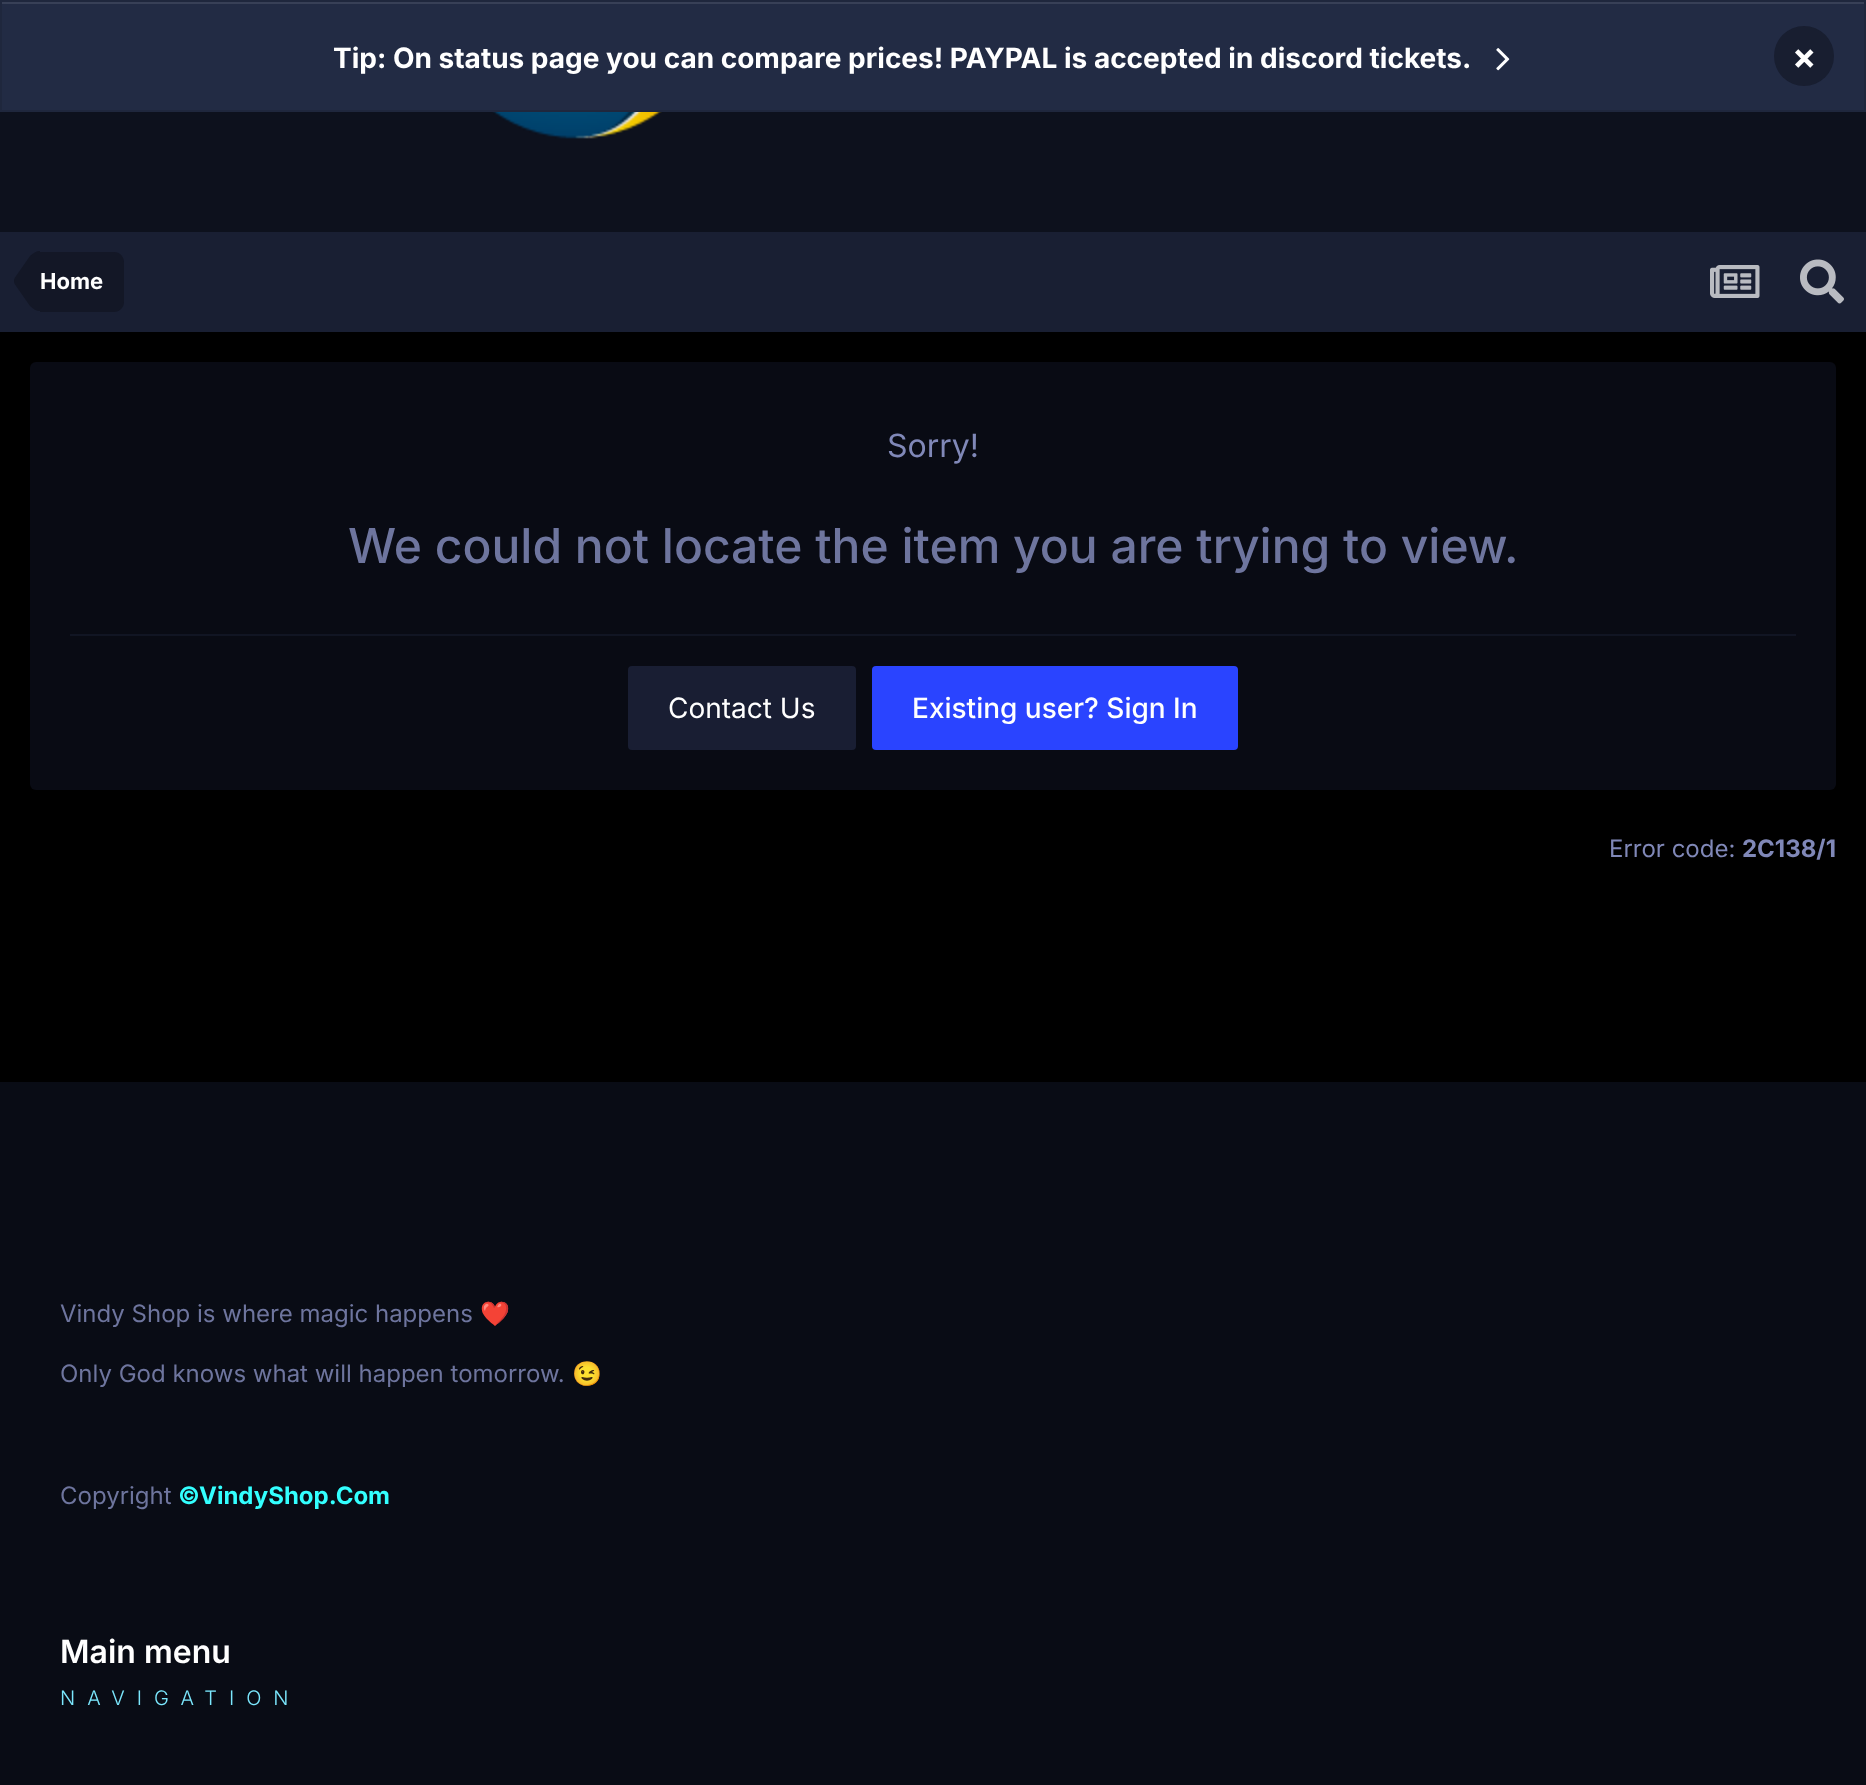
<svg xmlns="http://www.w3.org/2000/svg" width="1866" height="1785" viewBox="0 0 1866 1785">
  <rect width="100%" height="100%" fill="rgb(0,0,0)"/>
  <rect x="2" y="4" width="1862" height="106" fill="rgb(34,43,68)"/>
  <rect x="2" y="2" width="1862" height="2" fill="rgb(56,64,87)"/>
  <rect x="1" y="1" width="1864" height="110" fill="none" stroke="rgb(31,39,61)" stroke-width="2"/>
  <text x="333" y="68" font-family="Inter" font-size="28" font-weight="bold" fill="rgb(255,255,255)">Tip: On status page you can compare prices! PAYPAL is accepted in discord tickets.</text>
  <image x="1496" y="48" width="14" height="23" href="pic1.png"/>
  <circle cx="1804" cy="56" r="30" fill="rgb(24,30,48)"/>
  <text x="1792" y="69" font-family="Inter" font-size="36" font-weight="bold" fill="rgb(255,255,255)">×</text>
  <rect x="0" y="112" width="1866" height="120" fill="rgb(13,17,29)"/>
  <image x="492" y="112" width="170" height="27" href="pic2.png"/>
  <rect x="0" y="232" width="1866" height="100" fill="rgb(25,31,51)"/>
  <path d="M40 252H114C119.5 252 124 256.5 124 262V302C124 307.5 119.5 312 114 312H40Z" fill="rgb(19,23,38)"/>
  <path d="M40 281V311C36.5 311 33 309 30 306L15 284.5C14.5 283.5 14 282.5 14 281ZM40 281H14C14 279.5 14.5 278.5 15 277.5L30 256C33 253 36.5 251 40 251Z" fill="rgb(19,23,38)"/>
  <text x="40" y="289" font-family="Inter" font-size="22" font-weight="bold" fill="rgb(255,255,255)">Home</text>
  <image x="1710" y="265" width="50" height="33" href="pic3.png"/>
  <image x="1800" y="259" width="44" height="45" href="pic4.png"/>
  <rect x="30" y="362" width="1806" height="428" rx="6" fill="rgb(9,11,20)"/>
  <text x="887" y="457" font-family="Inter" font-size="32" fill="rgb(128,136,184)">Sorry!</text>
  <text x="348" y="563" font-family="Inter" font-size="48" font-weight="500" fill="rgb(110,117,158)">We could not locate the item you are trying to view.</text>
  <rect x="70" y="634" width="1726" height="2" fill="rgb(17,21,35)"/>
  <rect x="628" y="666" width="228" height="84" rx="4" fill="rgb(25,30,51)"/>
  <text x="668" y="718" font-family="Inter" font-size="28" fill="rgb(255,255,255)">Contact Us</text>
  <rect x="872" y="666" width="366" height="84" rx="4" fill="rgb(42,68,255)"/>
  <text x="912" y="718" font-family="Inter" font-size="28" font-weight="500" fill="rgb(255,255,255)">Existing user? Sign In</text>
  <text x="1609" y="857" font-family="Inter" font-size="24" fill="rgb(128,136,184)">Error code:</text>
  <text x="1742" y="857" font-family="Inter" font-size="24" font-weight="bold" fill="rgb(128,136,184)">2C138/1</text>
  <rect x="0" y="1082" width="1866" height="703" fill="rgb(9,12,21)"/>
  <text x="60" y="1322" font-family="Inter" font-size="24" fill="rgb(110,117,158)">Vindy Shop is where magic happens</text>
  <text x="480" y="1322" font-family="Noto Color Emoji" font-size="24" fill="rgb(110,117,158)">❤️</text>
  <text x="60" y="1382" font-family="Inter" font-size="24" fill="rgb(110,117,158)">Only God knows what will happen tomorrow.</text>
  <text x="572" y="1382" font-family="Noto Color Emoji" font-size="24" fill="rgb(110,117,158)">😉</text>
  <text x="60" y="1504" font-family="Inter" font-size="24" fill="rgb(110,117,158)">Copyright</text>
  <text x="178" y="1504" font-family="Inter" font-size="24" font-weight="bold" fill="rgb(51,255,255)">©VindyShop.Com</text>
  <text x="60" y="1663" font-family="Inter" font-size="32" font-weight="600" fill="rgb(255,255,255)">Main menu</text>
  <text x="60" y="1705" font-family="Inter" font-size="20" font-weight="300" letter-spacing="12" fill="rgb(124,232,254)">NAVIGATION</text>
</svg>
